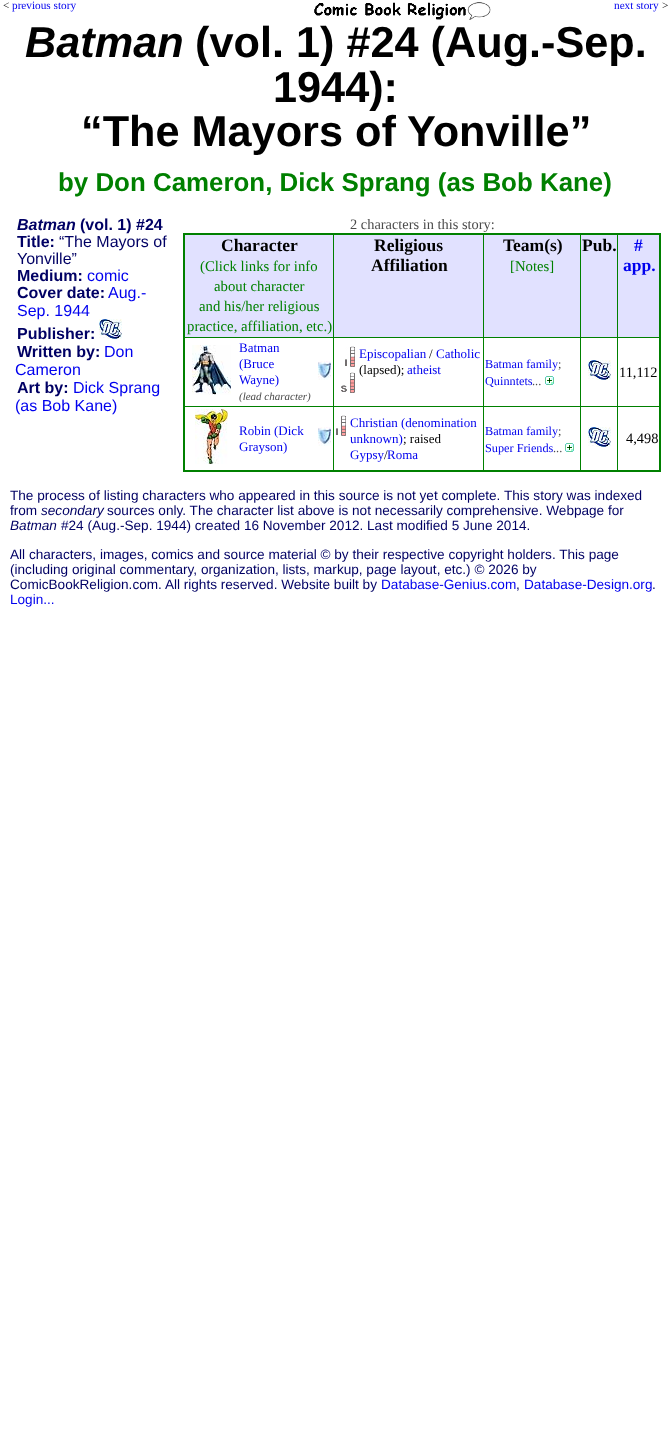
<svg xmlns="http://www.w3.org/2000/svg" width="671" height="1447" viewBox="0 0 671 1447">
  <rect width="100%" height="100%" fill="rgb(255,255,255)"/>
  <text x="3" y="9" font-family="Liberation Serif" font-size="11.25" fill="rgb(0,0,0)">&lt;</text>
  <text x="12" y="9" font-family="Liberation Serif" font-size="11.25" fill="rgb(0,0,238)">previous story</text>
  <image x="314" y="2" width="177" height="18" href="pic1.png"/>
  <text x="614" y="9" font-family="Liberation Serif" font-size="11.25" fill="rgb(0,0,238)">next story</text>
  <text x="662" y="9" font-family="Liberation Serif" font-size="11.25" fill="rgb(0,0,0)">&gt;</text>
  <text x="25" y="57" font-family="Liberation Sans" font-size="43.25" font-weight="bold" font-style="italic" fill="rgb(0,0,0)">Batman</text>
  <g font-family="Liberation Sans" font-size="43.25" font-weight="bold" fill="rgb(0,0,0)">
    <text x="195" y="57">(vol. 1) #24 (Aug.-Sep.</text>
    <text x="273" y="102">1944):</text>
    <text x="81" y="146">“The Mayors of Yonville”</text>
  </g>
  <text x="58" y="191" font-family="Liberation Sans" font-size="25.9" font-weight="bold" fill="rgb(0,128,0)">by Don Cameron, Dick Sprang (as Bob Kane)</text>
  <text x="17" y="230" font-family="Liberation Sans" font-size="16" font-weight="bold" font-style="italic" fill="rgb(0,0,100)">Batman</text>
  <g font-family="Liberation Sans" font-size="16" font-weight="bold" fill="rgb(0,0,100)">
    <text x="80" y="230">(vol. 1) #24</text>
    <text x="17" y="247">Title:</text>
  </g>
  <g font-family="Liberation Sans" font-size="16" fill="rgb(0,0,100)">
    <text x="59" y="247">“The Mayors of</text>
    <text x="17" y="264">Yonville”</text>
  </g>
  <text x="17" y="281" font-family="Liberation Sans" font-size="16" font-weight="bold" fill="rgb(0,0,100)">Medium:</text>
  <text x="87" y="281" font-family="Liberation Sans" font-size="16" fill="rgb(0,0,238)">comic</text>
  <text x="17" y="298" font-family="Liberation Sans" font-size="16" font-weight="bold" fill="rgb(0,0,100)">Cover date:</text>
  <g font-family="Liberation Sans" font-size="16" fill="rgb(0,0,238)">
    <text x="108" y="298">Aug.-</text>
    <text x="17" y="316">Sep. 1944</text>
  </g>
  <text x="17" y="339" font-family="Liberation Sans" font-size="16" font-weight="bold" fill="rgb(0,0,100)">Publisher:</text>
  <image x="99" y="319" width="23" height="20" href="pic2.png"/>
  <text x="17" y="357" font-family="Liberation Sans" font-size="16" font-weight="bold" fill="rgb(0,0,100)">Written by:</text>
  <g font-family="Liberation Sans" font-size="16" fill="rgb(0,0,238)">
    <text x="104" y="357">Don</text>
    <text x="15" y="375">Cameron</text>
  </g>
  <text x="17" y="393" font-family="Liberation Sans" font-size="16" font-weight="bold" fill="rgb(0,0,100)">Art by:</text>
  <g font-family="Liberation Sans" font-size="16" fill="rgb(0,0,238)">
    <text x="73" y="393">Dick Sprang</text>
    <text x="15" y="411">(as Bob Kane)</text>
  </g>
  <text x="350" y="229" font-family="Liberation Serif" font-size="14.4" fill="rgb(75,75,75)">2 characters in this story:</text>
  <rect x="617" y="337" width="44" height="1" fill="rgb(0,128,0)"/>
  <rect x="617" y="406" width="44" height="1" fill="rgb(0,128,0)"/>
  <rect x="617" y="406" width="1" height="66" fill="rgb(0,128,0)"/>
  <rect x="580" y="406" width="38" height="1" fill="rgb(0,128,0)"/>
  <rect x="617" y="337" width="1" height="70" fill="rgb(0,128,0)"/>
  <rect x="580" y="337" width="38" height="1" fill="rgb(0,128,0)"/>
  <rect x="580" y="406" width="1" height="66" fill="rgb(0,128,0)"/>
  <rect x="483" y="406" width="98" height="1" fill="rgb(0,128,0)"/>
  <rect x="580" y="337" width="1" height="70" fill="rgb(0,128,0)"/>
  <rect x="483" y="337" width="98" height="1" fill="rgb(0,128,0)"/>
  <rect x="483" y="406" width="1" height="66" fill="rgb(0,128,0)"/>
  <rect x="333" y="406" width="151" height="1" fill="rgb(0,128,0)"/>
  <rect x="483" y="337" width="1" height="70" fill="rgb(0,128,0)"/>
  <rect x="333" y="337" width="151" height="1" fill="rgb(0,128,0)"/>
  <rect x="333" y="406" width="1" height="66" fill="rgb(0,128,0)"/>
  <rect x="183" y="406" width="151" height="1" fill="rgb(0,128,0)"/>
  <rect x="333" y="337" width="1" height="70" fill="rgb(0,128,0)"/>
  <rect x="183" y="337" width="151" height="1" fill="rgb(0,128,0)"/>
  <rect x="333" y="234" width="1" height="104" fill="rgb(0,128,0)"/>
  <rect x="483" y="234" width="1" height="104" fill="rgb(0,128,0)"/>
  <rect x="580" y="234" width="1" height="104" fill="rgb(0,128,0)"/>
  <rect x="617" y="234" width="1" height="104" fill="rgb(0,128,0)"/>
  <rect x="183" y="233" width="478" height="2" fill="rgb(0,128,0)"/>
  <rect x="659" y="233" width="2" height="239" fill="rgb(0,128,0)"/>
  <rect x="183" y="470" width="478" height="2" fill="rgb(0,128,0)"/>
  <rect x="183" y="233" width="2" height="239" fill="rgb(0,128,0)"/>
  <rect x="185" y="235" width="148" height="102" fill="rgb(225,225,255)"/>
  <text x="221" y="251" font-family="Liberation Serif" font-size="17.5" font-weight="bold" fill="rgb(0,0,0)">Character</text>
  <g font-family="Liberation Serif" font-size="14.75" fill="rgb(0,128,0)">
    <text x="200" y="271">(Click links for info</text>
    <text x="214" y="291">about character</text>
    <text x="199" y="311">and his/her religious</text>
    <text x="187" y="331">practice, affiliation, etc.)</text>
  </g>
  <rect x="334" y="235" width="149" height="102" fill="rgb(225,225,255)"/>
  <g font-family="Liberation Serif" font-size="17.5" font-weight="bold" fill="rgb(0,0,0)">
    <text x="374" y="251">Religious</text>
    <text x="371" y="271">Affiliation</text>
  </g>
  <rect x="484" y="235" width="96" height="102" fill="rgb(225,225,255)"/>
  <text x="503" y="251" font-family="Liberation Serif" font-size="17.5" font-weight="bold" fill="rgb(0,0,0)">Team(s)</text>
  <text x="510" y="271" font-family="Liberation Serif" font-size="14.75" fill="rgb(0,128,0)">[Notes]</text>
  <rect x="581" y="235" width="36" height="102" fill="rgb(225,225,255)"/>
  <text x="582" y="251" font-family="Liberation Serif" font-size="17.5" font-weight="bold" fill="rgb(0,0,0)">Pub.</text>
  <rect x="618" y="235" width="41" height="102" fill="rgb(225,225,255)"/>
  <g font-family="Liberation Serif" font-size="17.5" font-weight="bold" fill="rgb(0,0,238)">
    <text x="634" y="251">#</text>
    <text x="623" y="271">app.</text>
  </g>
  <image x="192" y="345" width="39" height="50" href="pic3.png"/>
  <g font-family="Liberation Serif" font-size="13" fill="rgb(0,0,238)">
    <text>
      <tspan x="239" y="352">Batman</tspan>
      <tspan x="239" y="368">(Bruce</tspan>
      <tspan x="239" y="384">Wayne)</tspan>
    </text>
  </g>
  <text x="239" y="400" font-family="Liberation Serif" font-size="11" font-style="italic" fill="rgb(75,75,75)">(lead character)</text>
  <image x="318" y="361" width="13" height="19" href="pic4.png"/>
  <image x="345" y="346" width="10" height="21" href="pic5.png"/>
  <image x="341" y="372" width="14" height="21" href="pic6.png"/>
  <text x="359" y="358" font-family="Liberation Serif" font-size="13" fill="rgb(0,0,238)">Episcopalian</text>
  <text x="429" y="358" font-family="Liberation Serif" font-size="13" fill="rgb(0,0,0)">/</text>
  <text x="436" y="358" font-family="Liberation Serif" font-size="13" fill="rgb(0,0,238)">Catholic</text>
  <text x="359" y="374" font-family="Liberation Serif" font-size="13" fill="rgb(0,0,0)">(lapsed);</text>
  <text x="407" y="374" font-family="Liberation Serif" font-size="13" fill="rgb(0,0,238)">atheist</text>
  <text x="485" y="368" font-family="Liberation Serif" font-size="12.25" fill="rgb(0,0,238)">Batman family</text>
  <text x="558" y="368" font-family="Liberation Serif" font-size="12.25" fill="rgb(75,75,75)">;</text>
  <text x="485" y="385" font-family="Liberation Serif" font-size="12.25" fill="rgb(0,0,238)">Quinntets</text>
  <text x="532" y="385" font-family="Liberation Serif" font-size="12.25" fill="rgb(75,75,75)">...</text>
  <image x="545" y="376" width="9" height="9" href="pic7.png"/>
  <image x="588" y="360" width="23" height="20" href="pic2.png"/>
  <text x="619" y="377" font-family="Liberation Serif" font-size="14.4" fill="rgb(0,0,0)">11,112</text>
  <image x="195" y="409" width="33" height="55" href="pic8.png"/>
  <g font-family="Liberation Serif" font-size="13" fill="rgb(0,0,238)">
    <text>
      <tspan x="239" y="435">Robin (Dick</tspan>
      <tspan x="239" y="451">Grayson)</tspan>
    </text>
  </g>
  <image x="318" y="427" width="13" height="19" href="pic4.png"/>
  <image x="336" y="415" width="10" height="21" href="pic5.png"/>
  <g font-family="Liberation Serif" font-size="13" fill="rgb(0,0,238)">
    <text>
      <tspan x="350" y="427">Christian (denomination</tspan>
      <tspan x="350" y="443">unknown)</tspan>
    </text>
  </g>
  <text x="403" y="443" font-family="Liberation Serif" font-size="13" fill="rgb(0,0,0)">; raised</text>
  <text x="350" y="459" font-family="Liberation Serif" font-size="13" fill="rgb(0,0,238)">Gypsy</text>
  <text x="384" y="459" font-family="Liberation Serif" font-size="13" fill="rgb(0,0,0)">/</text>
  <text x="387" y="459" font-family="Liberation Serif" font-size="13" fill="rgb(0,0,238)">Roma</text>
  <text x="485" y="435" font-family="Liberation Serif" font-size="12.25" fill="rgb(0,0,238)">Batman family</text>
  <text x="558" y="435" font-family="Liberation Serif" font-size="12.25" fill="rgb(75,75,75)">;</text>
  <text x="485" y="452" font-family="Liberation Serif" font-size="12.25" fill="rgb(0,0,238)">Super Friends</text>
  <text x="553" y="452" font-family="Liberation Serif" font-size="12.25" fill="rgb(75,75,75)">...</text>
  <image x="565" y="443" width="9" height="9" href="pic7.png"/>
  <image x="588" y="427" width="23" height="20" href="pic2.png"/>
  <text x="626" y="443" font-family="Liberation Serif" font-size="14.4" fill="rgb(0,0,0)">4,498</text>
  <g font-family="Liberation Sans" font-size="13.6" fill="rgb(0,0,100)">
    <text>
      <tspan x="10" y="500">The process of listing characters who appeared in this source is not yet complete. This story was indexed</tspan>
      <tspan x="10" y="515">from</tspan>
    </text>
  </g>
  <text x="41" y="515" font-family="Liberation Sans" font-size="13.6" font-style="italic" fill="rgb(0,0,100)">secondary</text>
  <text x="107" y="515" font-family="Liberation Sans" font-size="13.6" fill="rgb(0,0,100)">sources only. The character list above is not necessarily comprehensive. Webpage for</text>
  <text x="10" y="530" font-family="Liberation Sans" font-size="13.6" font-style="italic" fill="rgb(0,0,100)">Batman</text>
  <g font-family="Liberation Sans" font-size="13.6" fill="rgb(0,0,100)">
    <text x="61" y="530">#24 (Aug.-Sep. 1944) created 16 November 2012. Last modified 5 June 2014.</text>
    <text>
      <tspan x="10" y="559">All characters, images, comics and source material © by their respective copyright holders. This page</tspan>
      <tspan x="10" y="574">(including original commentary, organization, lists, markup, page layout, etc.) © 2026 by</tspan>
      <tspan x="10" y="589">ComicBookReligion.com. All rights reserved. Website built by</tspan>
    </text>
  </g>
  <text x="381" y="589" font-family="Liberation Sans" font-size="13.6" fill="rgb(0,0,238)">Database-Genius.com</text>
  <text x="516" y="589" font-family="Liberation Sans" font-size="13.6" fill="rgb(0,0,100)">,</text>
  <text x="524" y="589" font-family="Liberation Sans" font-size="13.6" fill="rgb(0,0,238)">Database-Design.org</text>
  <text x="652" y="589" font-family="Liberation Sans" font-size="13.6" fill="rgb(0,0,100)">.</text>
  <text x="10" y="604" font-family="Liberation Sans" font-size="13.6" fill="rgb(0,0,238)">Login...</text>
</svg>
